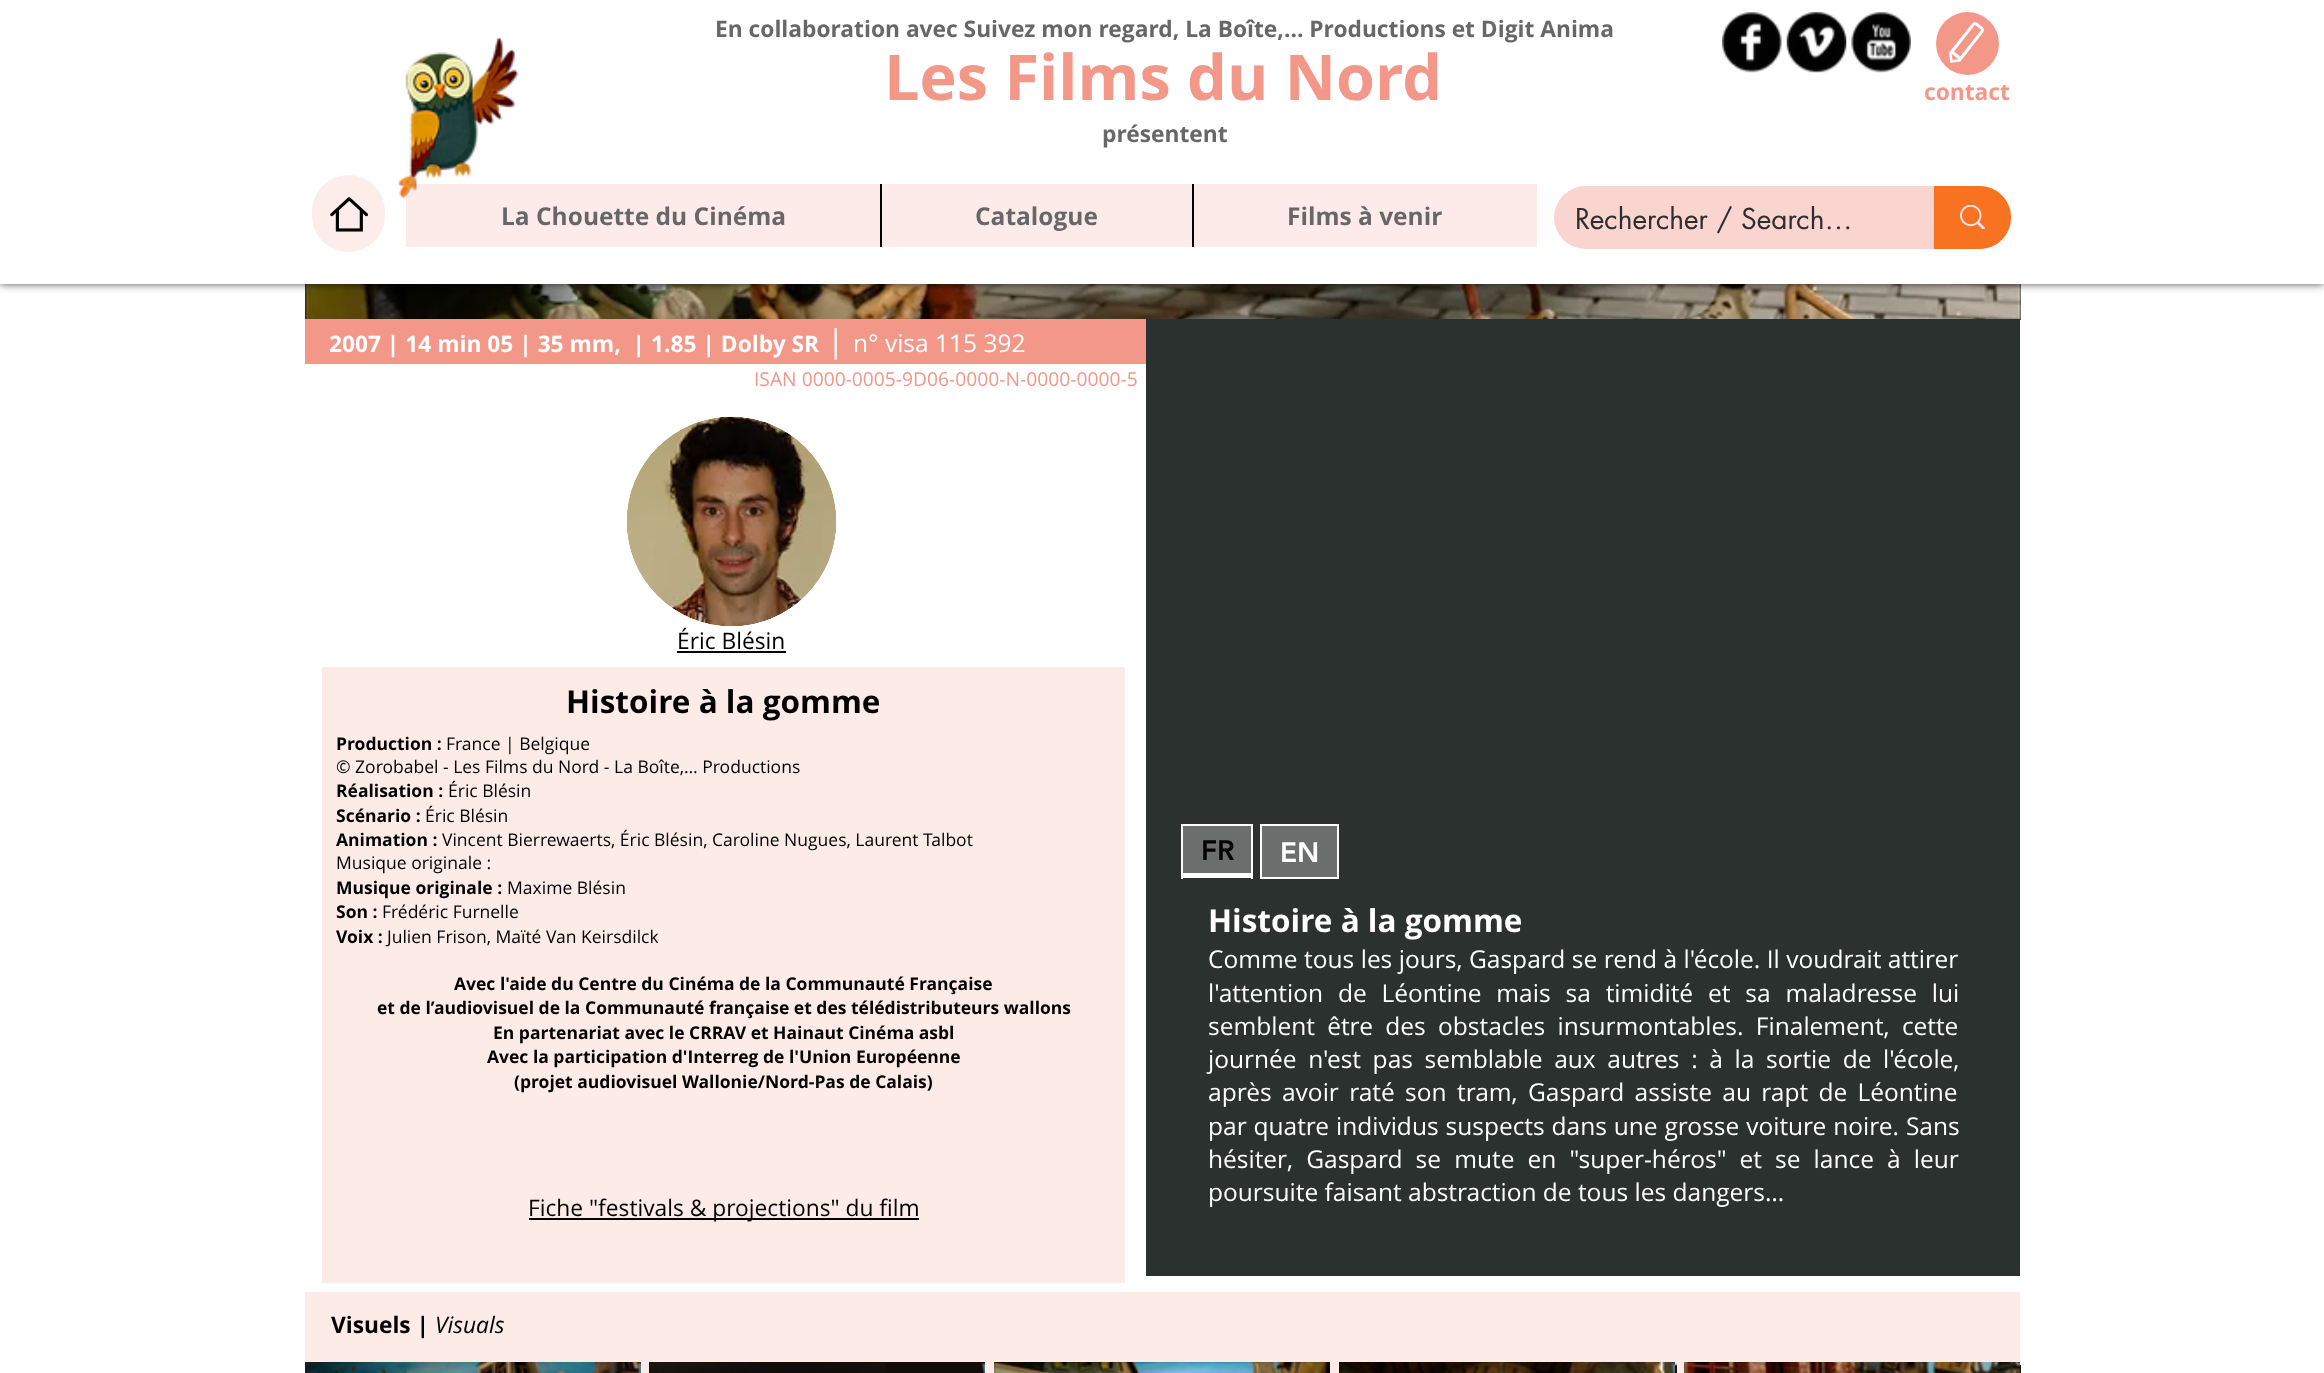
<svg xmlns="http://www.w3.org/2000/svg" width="2324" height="1373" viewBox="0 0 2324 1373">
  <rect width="100%" height="100%" fill="rgb(255,255,255)"/>
  <image x="305" y="284" width="1716" height="36" href="pic8.png"/>
  <rect x="0" y="0" width="2324" height="284" fill="rgba(0,0,0,0.7)" filter="blur(4.5px)"/>
  <rect x="0" y="0" width="2324" height="284" fill="rgb(255,255,255)"/>
  <text x="715" y="37" font-family="Open Sans" font-size="22.75" font-weight="bold" fill="rgb(104,103,103)">En collaboration avec Suivez mon regard, La Boîte,... Productions et Digit Anima</text>
  <rect x="406" y="184" width="1131" height="63" fill="rgb(253,235,233)"/>
  <image x="398" y="37" width="121" height="162" href="pic1.png"/>
  <text x="884" y="100" font-family="Open Sans" font-size="63" font-weight="bold" fill="rgb(243,151,137)">Les Films du Nord</text>
  <text x="1102" y="142" font-family="Open Sans" font-size="22.75" font-weight="bold" fill="rgb(104,103,103)">présentent</text>
  <rect x="312" y="175" width="73" height="77" rx="36.5" fill="rgb(252,236,234)"/>
  <image x="330" y="197" width="38" height="35" href="pic2.png"/>
  <text x="501" y="225" font-family="Open Sans" font-size="24.5" font-weight="bold" fill="rgb(104,103,103)">La Chouette du Cinéma</text>
  <rect x="880" y="184" width="2" height="63" fill="rgb(0,0,0)"/>
  <text x="975" y="225" font-family="Open Sans" font-size="24.5" font-weight="bold" fill="rgb(104,103,103)">Catalogue</text>
  <rect x="1192" y="184" width="2" height="63" fill="rgb(0,0,0)"/>
  <text x="1287" y="225" font-family="Open Sans" font-size="24.5" font-weight="bold" fill="rgb(104,103,103)">Films à venir</text>
  <image x="1722" y="12" width="60" height="61" href="pic3.png"/>
  <image x="1786" y="12" width="61" height="61" href="pic4.png"/>
  <image x="1851" y="12" width="60" height="61" href="pic5.png"/>
  <circle cx="1967.5" cy="43.5" r="31.5" fill="rgb(243,151,137)"/>
  <image x="1949" y="22" width="35" height="41" href="pic6.png"/>
  <text x="1924" y="100" font-family="Open Sans" font-size="22.75" font-weight="bold" fill="rgb(243,151,137)">contact</text>
  <rect x="1554" y="186" width="457" height="63" rx="31.5" fill="rgb(250,212,207)"/>
  <text x="1575" y="229" font-family="futura" font-size="28" fill="rgb(47,46,46)">Rechercher / Search…</text>
  <path d="M1934 186H1979.5C1997 186 2011 200 2011 217.5C2011 235 1997 249 1979.5 249H1934Z" fill="rgb(247,114,33)"/>
  <image x="1960" y="205" width="25" height="24" href="pic7.png"/>
  <rect x="305" y="319" width="841" height="45" fill="rgb(243,151,137)"/>
  <text x="329" y="352" font-family="Open Sans" font-size="22.75" font-weight="bold" fill="rgb(255,255,255)" xml:space="preserve">2007 | 14 min 05 | 35 mm,  | 1.85 | Dolby SR</text>
  <text x="827" y="352" font-family="Open Sans" font-size="31.5" fill="rgb(255,255,255)">|</text>
  <text x="853" y="352" font-family="Open Sans" font-size="24.5" fill="rgb(255,255,255)">n° visa 115 392</text>
  <text x="754" y="386" font-family="Open Sans" font-size="19.25" fill="rgb(243,151,137)">ISAN 0000-0005-9D06-0000-N-0000-0000-5</text>
  <image x="626" y="416" width="210" height="211" href="pic9.png"/>
  <text x="677" y="649" font-family="Open Sans" font-size="22.75" fill="rgb(0,0,0)">Éric Blésin</text>
  <rect x="677" y="651" width="109" height="2" fill="rgb(0,0,0)"/>
  <rect x="322" y="667" width="803" height="616" fill="rgb(253,235,232)"/>
  <text x="566" y="713" font-family="Open Sans" font-size="31.5" font-weight="bold" fill="rgb(0,0,0)">Histoire à la gomme</text>
  <text x="336" y="750" font-family="Open Sans" font-size="17.5" font-weight="bold" fill="rgb(0,0,0)">Production :</text>
  <g font-family="Open Sans" font-size="17.5" fill="rgb(0,0,0)">
    <text x="446" y="750">France | Belgique</text>
    <text x="336" y="773">© Zorobabel - Les Films du Nord - La Boîte,… Productions</text>
  </g>
  <text x="336" y="797" font-family="Open Sans" font-size="17.5" font-weight="bold" fill="rgb(0,0,0)">Réalisation :</text>
  <text x="448" y="797" font-family="Open Sans" font-size="17.5" fill="rgb(0,0,0)">Éric Blésin</text>
  <text x="336" y="822" font-family="Open Sans" font-size="17.5" font-weight="bold" fill="rgb(0,0,0)">Scénario :</text>
  <text x="425" y="822" font-family="Open Sans" font-size="17.5" fill="rgb(0,0,0)">Éric Blésin</text>
  <text x="336" y="846" font-family="Open Sans" font-size="17.5" font-weight="bold" fill="rgb(0,0,0)">Animation :</text>
  <g font-family="Open Sans" font-size="17.5" fill="rgb(0,0,0)">
    <text x="442" y="846">Vincent Bierrewaerts, Éric Blésin, Caroline Nugues, Laurent Talbot</text>
    <text x="336" y="869">Musique originale :</text>
  </g>
  <text x="336" y="894" font-family="Open Sans" font-size="17.5" font-weight="bold" fill="rgb(0,0,0)">Musique originale :</text>
  <text x="507" y="894" font-family="Open Sans" font-size="17.5" fill="rgb(0,0,0)">Maxime Blésin</text>
  <text x="336" y="918" font-family="Open Sans" font-size="17.5" font-weight="bold" fill="rgb(0,0,0)">Son :</text>
  <text x="382" y="918" font-family="Open Sans" font-size="17.5" fill="rgb(0,0,0)">Frédéric Furnelle</text>
  <text x="336" y="943" font-family="Open Sans" font-size="17.5" font-weight="bold" fill="rgb(0,0,0)">Voix :</text>
  <text x="387" y="943" font-family="Open Sans" font-size="17.5" fill="rgb(0,0,0)">Julien Frison, Maïté Van Keirsdilck</text>
  <g font-family="Open Sans" font-size="17.5" font-weight="bold" fill="rgb(0,0,0)">
    <text x="454" y="990">Avec l'aide du Centre du Cinéma de la Communauté Française</text>
    <text x="377" y="1014">et de l’audiovisuel de la Communauté française et des télédistributeurs wallons</text>
    <text x="493" y="1039">En partenariat avec le CRRAV et Hainaut Cinéma asbl</text>
    <text x="487" y="1063">Avec la participation d'Interreg de l'Union Européenne</text>
    <text x="514" y="1088">(projet audiovisuel Wallonie/Nord-Pas de Calais)</text>
  </g>
  <rect x="529" y="1218" width="390" height="2" fill="rgb(0,0,0)"/>
  <text x="528" y="1216" font-family="Open Sans" font-size="22.75" fill="rgb(0,0,0)">Fiche "festivals &amp; projections" du film</text>
  <rect x="1146" y="319" width="874" height="957" fill="rgb(42,49,47)"/>
  <rect x="1183" y="826" width="68" height="47" fill="rgb(106,111,109)"/>
  <rect x="1181" y="824" width="72" height="2" fill="rgb(255,255,255)"/>
  <rect x="1251" y="824" width="2" height="55" fill="rgb(255,255,255)"/>
  <rect x="1181" y="873" width="72" height="5" fill="rgb(255,255,255)"/>
  <rect x="1181" y="824" width="2" height="55" fill="rgb(255,255,255)"/>
  <text x="1201" y="860" font-family="'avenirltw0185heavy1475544'" font-size="28" font-weight="900" fill="rgb(0,0,0)">FR</text>
  <rect x="1261" y="825" width="77" height="53" fill="rgb(106,111,109)" stroke="rgb(255,255,255)" stroke-width="2"/>
  <text x="1280" y="862" font-family="'avenirltw0185heavy1475544'" font-size="28" font-weight="900" fill="rgb(255,255,255)">EN</text>
  <text x="1208" y="932" font-family="Open Sans" font-size="31.5" font-weight="bold" fill="rgb(255,255,255)">Histoire à la gomme</text>
  <g font-family="Open Sans" font-size="24.5" fill="rgb(255,255,255)">
    <text>
      <tspan x="1208" y="968" word-spacing="0.1">Comme tous les jours, Gaspard se rend à l'école. Il voudrait attirer</tspan>
      <tspan x="1208" y="1002" word-spacing="8.5">l'attention de Léontine mais sa timidité et sa maladresse lui</tspan>
      <tspan x="1208" y="1035" word-spacing="6">semblent être des obstacles insurmontables. Finalement, cette</tspan>
      <tspan x="1208" y="1068" word-spacing="5.25">journée n'est pas semblable aux autres : à la sortie de l'école,</tspan>
      <tspan x="1208" y="1101" word-spacing="4">après avoir raté son tram, Gaspard assiste au rapt de Léontine</tspan>
      <tspan x="1208" y="1135" word-spacing="0.5">par quatre individus suspects dans une grosse voiture noire. Sans</tspan>
      <tspan x="1208" y="1168" word-spacing="6.75">hésiter, Gaspard se mute en "super-héros" et se lance à leur</tspan>
      <tspan x="1208" y="1201">poursuite faisant abstraction de tous les dangers…</tspan>
    </text>
  </g>
  <rect x="305" y="1292" width="1715" height="81" fill="rgb(253,235,232)"/>
  <text x="331" y="1333" font-family="Open Sans" font-size="22.75" font-weight="bold" fill="rgb(0,0,0)">Visuels |</text>
  <text x="435" y="1333" font-family="Open Sans" font-size="22.75" font-style="italic" fill="rgb(0,0,0)">Visuals</text>
  <image x="305" y="1362" width="336" height="11" href="pic10.png"/>
  <image x="649" y="1362" width="336" height="11" href="pic11.png"/>
  <image x="994" y="1362" width="336" height="11" href="pic12.png"/>
  <image x="1339" y="1362" width="336" height="11" href="pic13.png"/>
  <image x="1684" y="1362" width="336" height="11" href="pic14.png"/>
  <rect x="1675" y="1363" width="2" height="3" fill="rgb(218,217,212)"/>
  <image x="1675" y="1364" width="2" height="9" href="pic15.png"/>
  <rect x="2020" y="1365" width="1" height="8" fill="rgb(17,17,17)"/>
</svg>
